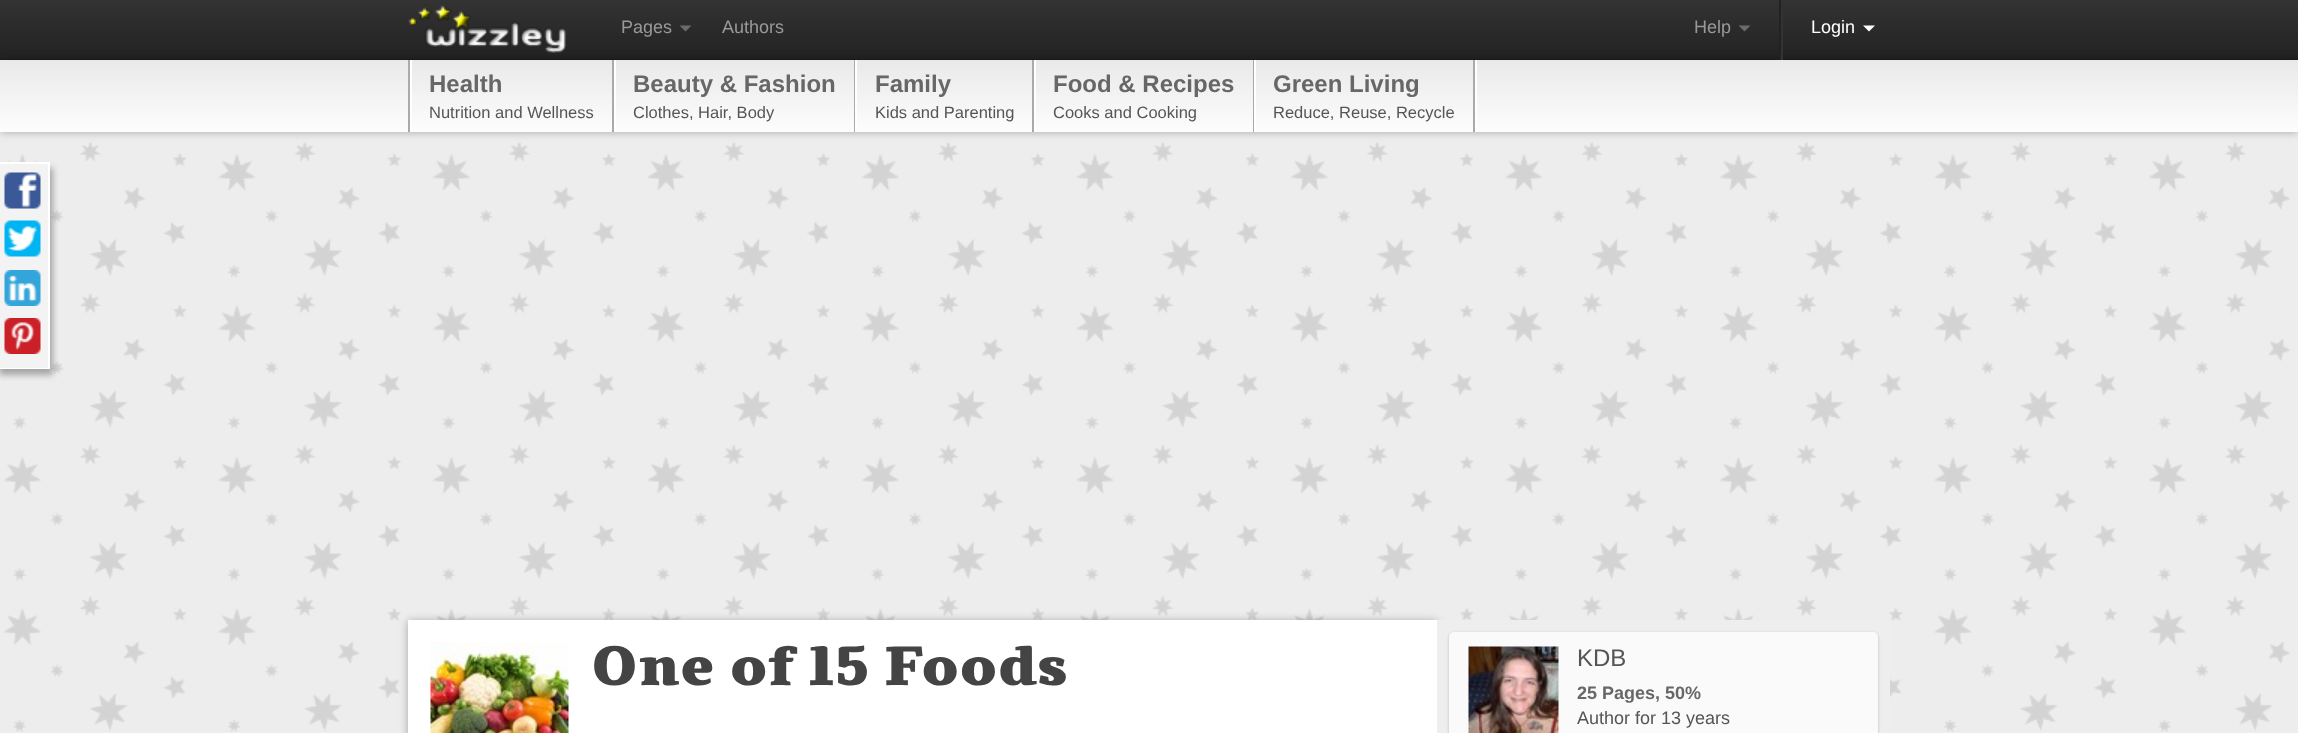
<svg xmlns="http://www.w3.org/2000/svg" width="2298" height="733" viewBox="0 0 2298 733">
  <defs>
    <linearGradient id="g1" gradientUnits="userSpaceOnUse" x1="1149" y1="0" x2="1149" y2="60"><stop offset="0" stop-color="rgb(51,51,51)"/><stop offset="1" stop-color="rgb(34,34,34)"/></linearGradient>
    <linearGradient id="g2" gradientUnits="userSpaceOnUse" x1="1149" y1="60" x2="1149" y2="132"><stop offset="0" stop-color="rgb(233,233,233)"/><stop offset="1" stop-color="rgb(253,253,253)"/></linearGradient>
  </defs>
  <rect width="100%" height="100%" fill="rgb(237,237,237)"/>
  <image x="4" y="142" width="2286" height="590" href="pic1.png"/>
  <rect x="0" y="0" width="2298" height="60" fill="url(#g1)"/>
  <rect x="0" y="59" width="2298" height="1" fill="rgba(0,0,0,0.1)"/>
  <rect x="0" y="60" width="2298" height="72" fill="rgba(0,0,0,0.3)" filter="blur(4px)"/>
  <image x="408" y="5" width="158" height="48" href="pic2.png"/>
  <text x="621" y="33" font-family="Liberation Sans" font-size="18" fill="rgb(153,153,153)">Pages</text>
  <path d="M679.5 25.5H691.5L685.5 31.5Z" fill="rgb(107,107,107)"/>
  <g font-family="Liberation Sans" font-size="18" fill="rgb(153,153,153)">
    <text x="722" y="33">Authors</text>
    <text x="1694" y="33">Help</text>
  </g>
  <path d="M1738.5 25.5H1750.5L1744.5 31.5Z" fill="rgb(107,107,107)"/>
  <rect x="1779" y="0" width="2" height="60" fill="rgb(34,34,34)"/>
  <rect x="1781" y="9" width="2" height="51" fill="rgb(51,51,51)"/>
  <text x="1811" y="33" font-family="Liberation Sans" font-size="18" fill="rgb(255,255,255)">Login</text>
  <path d="M1863 25.5H1875L1869 31.5Z" fill="rgb(255,255,255)"/>
  <rect x="0" y="60" width="2298" height="72" fill="url(#g2)"/>
  <rect x="1475" y="60" width="2" height="72" fill="rgb(255,255,255)"/>
  <rect x="408" y="60" width="2" height="72" fill="rgb(170,170,170)"/>
  <rect x="612" y="60" width="2" height="72" fill="rgb(170,170,170)"/>
  <rect x="410" y="60" width="2" height="72" fill="rgb(255,255,255)"/>
  <text x="429" y="92" font-family="Liberation Sans" font-size="24" font-weight="bold" fill="rgb(103,103,103)">Health</text>
  <text x="429" y="118" font-family="Liberation Sans" font-size="16.5" fill="rgb(85,85,85)">Nutrition and Wellness</text>
  <rect x="854" y="60" width="1" height="72" fill="rgb(170,170,170)"/>
  <rect x="614" y="60" width="2" height="72" fill="rgb(255,255,255)"/>
  <text x="633" y="92" font-family="Liberation Sans" font-size="24" font-weight="bold" fill="rgb(103,103,103)">Beauty &amp; Fashion</text>
  <text x="633" y="118" font-family="Liberation Sans" font-size="16.5" fill="rgb(85,85,85)">Clothes, Hair, Body</text>
  <rect x="1032" y="60" width="2" height="72" fill="rgb(170,170,170)"/>
  <rect x="855" y="60" width="2" height="72" fill="rgb(255,255,255)"/>
  <text x="875" y="92" font-family="Liberation Sans" font-size="24" font-weight="bold" fill="rgb(103,103,103)">Family</text>
  <text x="875" y="118" font-family="Liberation Sans" font-size="16.5" fill="rgb(85,85,85)">Kids and Parenting</text>
  <rect x="1253" y="60" width="1" height="72" fill="rgb(170,170,170)"/>
  <rect x="1034" y="60" width="2" height="72" fill="rgb(255,255,255)"/>
  <text x="1053" y="92" font-family="Liberation Sans" font-size="24" font-weight="bold" fill="rgb(103,103,103)">Food &amp; Recipes</text>
  <text x="1053" y="118" font-family="Liberation Sans" font-size="16.5" fill="rgb(85,85,85)">Cooks and Cooking</text>
  <rect x="1473" y="60" width="2" height="72" fill="rgb(170,170,170)"/>
  <rect x="1254" y="60" width="2" height="72" fill="rgb(255,255,255)"/>
  <text x="1273" y="92" font-family="Liberation Sans" font-size="24" font-weight="bold" fill="rgb(103,103,103)">Green Living</text>
  <text x="1273" y="118" font-family="Liberation Sans" font-size="16.5" fill="rgb(85,85,85)">Reduce, Reuse, Recycle</text>
  <rect x="-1" y="168" width="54" height="207" fill="rgba(0,0,0,0.3)" filter="blur(3px)"/>
  <rect x="0" y="162" width="50" height="207" fill="rgb(255,255,255)"/>
  <rect x="0" y="164" width="48" height="204" fill="rgb(243,243,243)"/>
  <image x="4" y="172" width="37" height="37" href="pic3.png"/>
  <image x="4" y="220" width="37" height="37" href="pic4.png"/>
  <image x="4" y="270" width="37" height="36" href="pic5.png"/>
  <image x="4" y="318" width="37" height="36" href="pic6.png"/>
  <rect x="408" y="621" width="1029" height="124" fill="rgba(0,0,30,0.3)" filter="blur(4px)"/>
  <rect x="408" y="620" width="1029" height="113" fill="rgb(255,255,255)"/>
  <image x="430" y="642" width="139" height="91" href="pic7.png"/>
  <text x="591" y="685" font-family="Tienne" font-size="57" font-weight="900" fill="rgb(68,68,68)">One of 15 Foods</text>
  <rect x="1437" y="620" width="453" height="113" fill="rgb(238,238,238)"/>
  <rect x="1449" y="633" width="429" height="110" rx="5" fill="rgba(0,0,30,0.2)" filter="blur(1.5px)"/>
  <rect x="1449" y="632" width="429" height="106" rx="5" fill="rgb(250,250,250)"/>
  <image x="1468" y="646" width="91" height="87" href="pic8.png"/>
  <text x="1577" y="666" font-family="Liberation Sans" font-size="24" fill="rgb(85,85,85)">KDB</text>
  <text x="1577" y="699" font-family="Liberation Sans" font-size="18" font-weight="bold" fill="rgb(103,103,103)">25 Pages, 50%</text>
  <text x="1577" y="724" font-family="Liberation Sans" font-size="18" fill="rgb(85,85,85)">Author for 13 years</text>
</svg>
